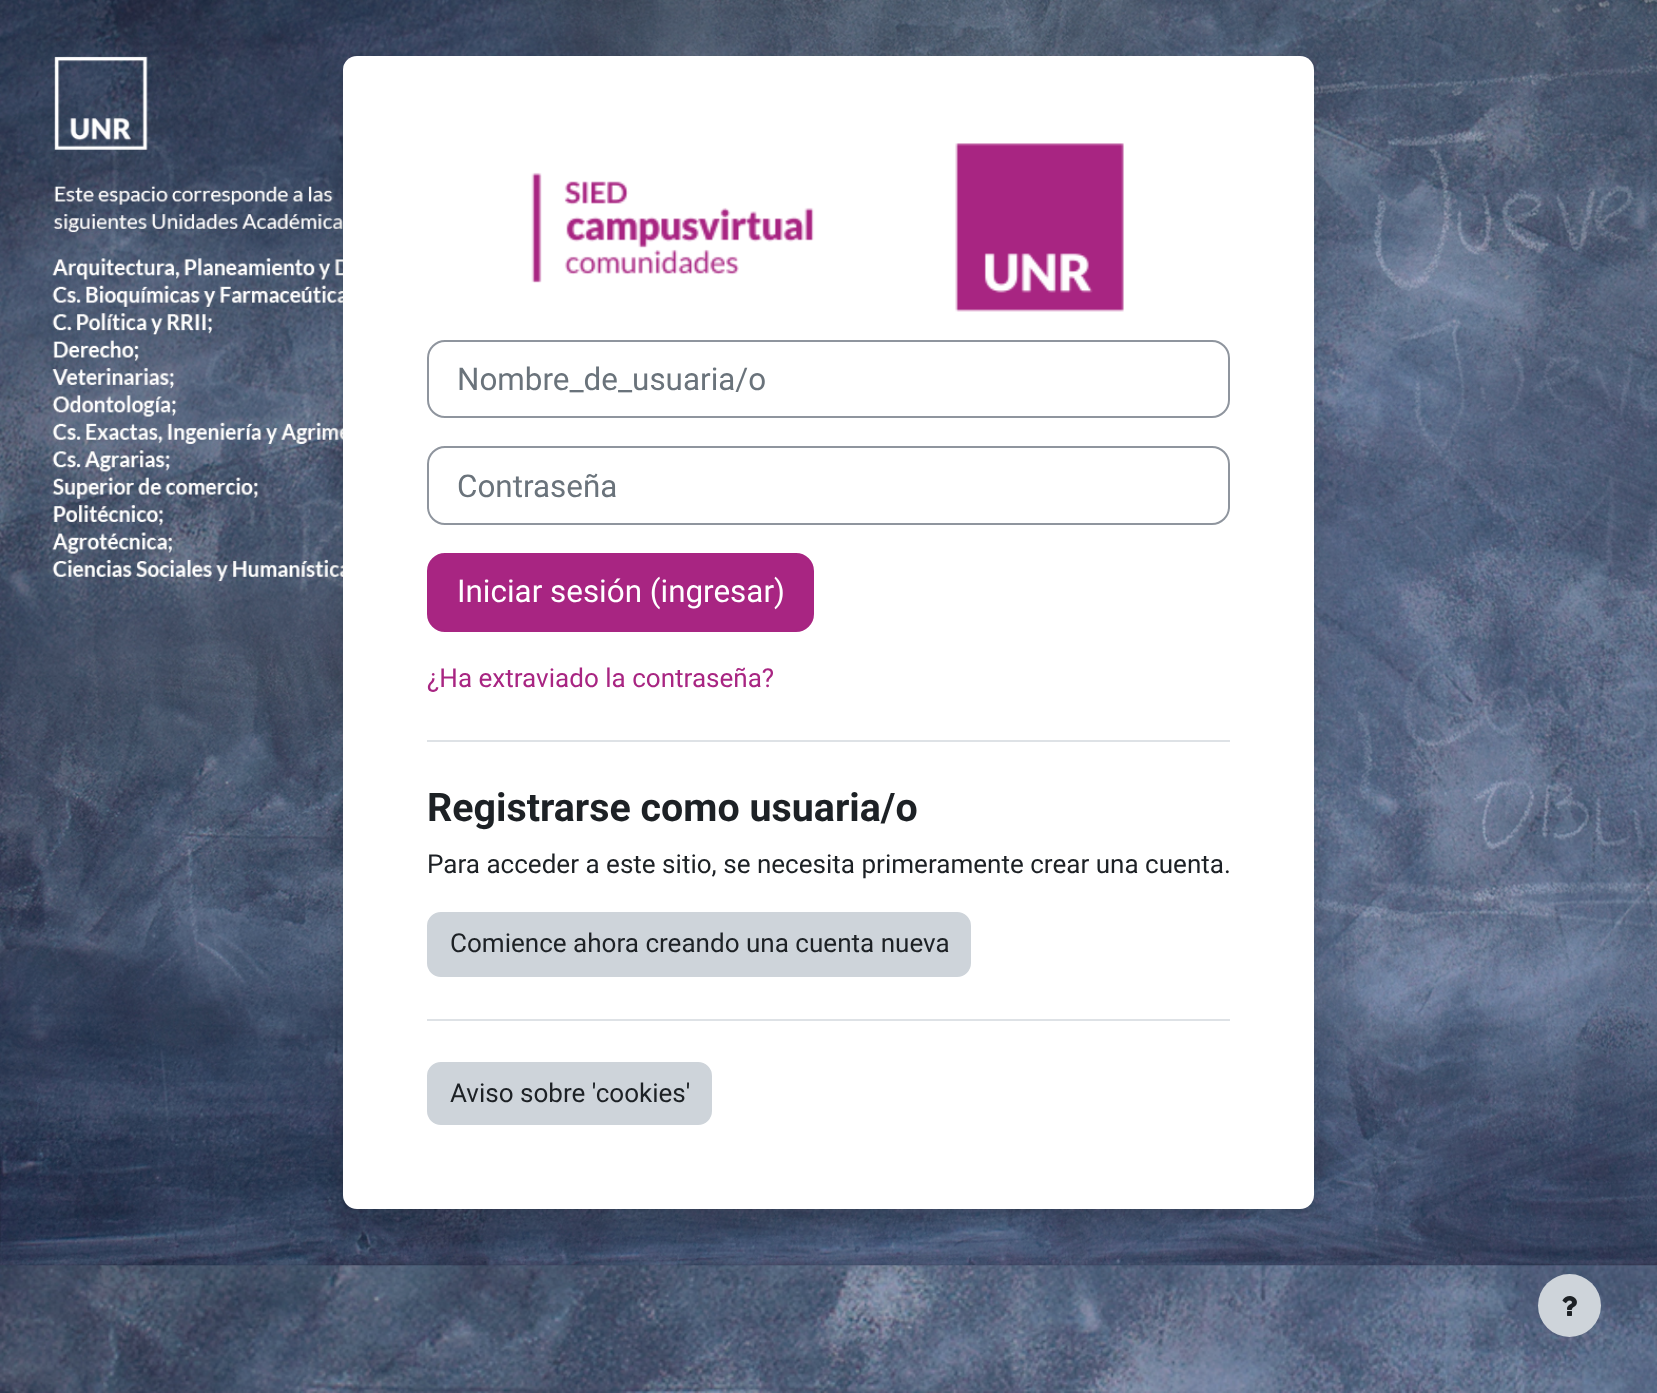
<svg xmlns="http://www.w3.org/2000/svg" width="1657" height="1393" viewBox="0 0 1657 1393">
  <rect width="100%" height="100%" fill="rgb(255,255,255)"/>
  <image x="0" y="1265" width="1657" height="128" href="pic1.png"/>
  <image x="0" y="0" width="1657" height="1266" href="pic2.png"/>
  <rect x="343" y="70" width="971" height="1153" rx="14" fill="rgba(0,0,0,0.15)" filter="blur(14px)"/>
  <rect x="343" y="56" width="971" height="1153" rx="14" fill="rgb(255,255,255)"/>
  <image x="531" y="143" width="593" height="169" href="pic3.png"/>
  <rect x="428" y="341" width="801" height="76" rx="17" fill="none" stroke="rgb(143,149,158)" stroke-width="2"/>
  <text x="457" y="390" font-family="Roboto" font-size="31.4" fill="rgb(106,115,123)">Nombre_de_usuaria/o</text>
  <rect x="428" y="447" width="801" height="77" rx="17" fill="none" stroke="rgb(143,149,158)" stroke-width="2"/>
  <text x="457" y="497" font-family="Roboto" font-size="31.4" fill="rgb(106,115,123)">Contraseña</text>
  <rect x="428" y="554" width="385" height="77" rx="17" fill="rgb(168,37,130)" stroke="rgb(168,37,130)" stroke-width="2"/>
  <text x="457" y="602" font-family="Roboto" font-size="31.4" fill="rgb(255,255,255)">Iniciar sesión (ingresar)</text>
  <text x="427" y="687" font-family="Roboto" font-size="26.05" fill="rgb(168,37,130)">¿Ha extraviado la contraseña?</text>
  <rect x="427" y="740" width="803" height="2" fill="rgb(222,226,230)"/>
  <text x="427" y="821" font-family="Roboto" font-size="39.4" font-weight="bold" fill="rgb(29,33,37)">Registrarse como usuaria/o</text>
  <text x="427" y="873" font-family="Roboto" font-size="26.05" fill="rgb(29,33,37)">Para acceder a este sitio, se necesita primeramente crear una cuenta.</text>
  <rect x="428" y="913" width="542" height="63" rx="13" fill="rgb(206,212,218)" stroke="rgb(206,212,218)" stroke-width="2"/>
  <text x="450" y="952" font-family="Roboto" font-size="26.05" fill="rgb(29,33,37)">Comience ahora creando una cuenta nueva</text>
  <rect x="427" y="1019" width="803" height="2" fill="rgb(222,226,230)"/>
  <rect x="428" y="1063" width="283" height="61" rx="13" fill="rgb(206,212,218)" stroke="rgb(206,212,218)" stroke-width="2"/>
  <text x="450" y="1102" font-family="Roboto" font-size="26.05" fill="rgb(29,33,37)">Aviso sobre 'cookies'</text>
  <circle cx="1569.5" cy="1305.5" r="31.5" fill="rgb(206,212,218)"/>
  <image x="1562" y="1296" width="15" height="20" href="pic4.png"/>
</svg>
